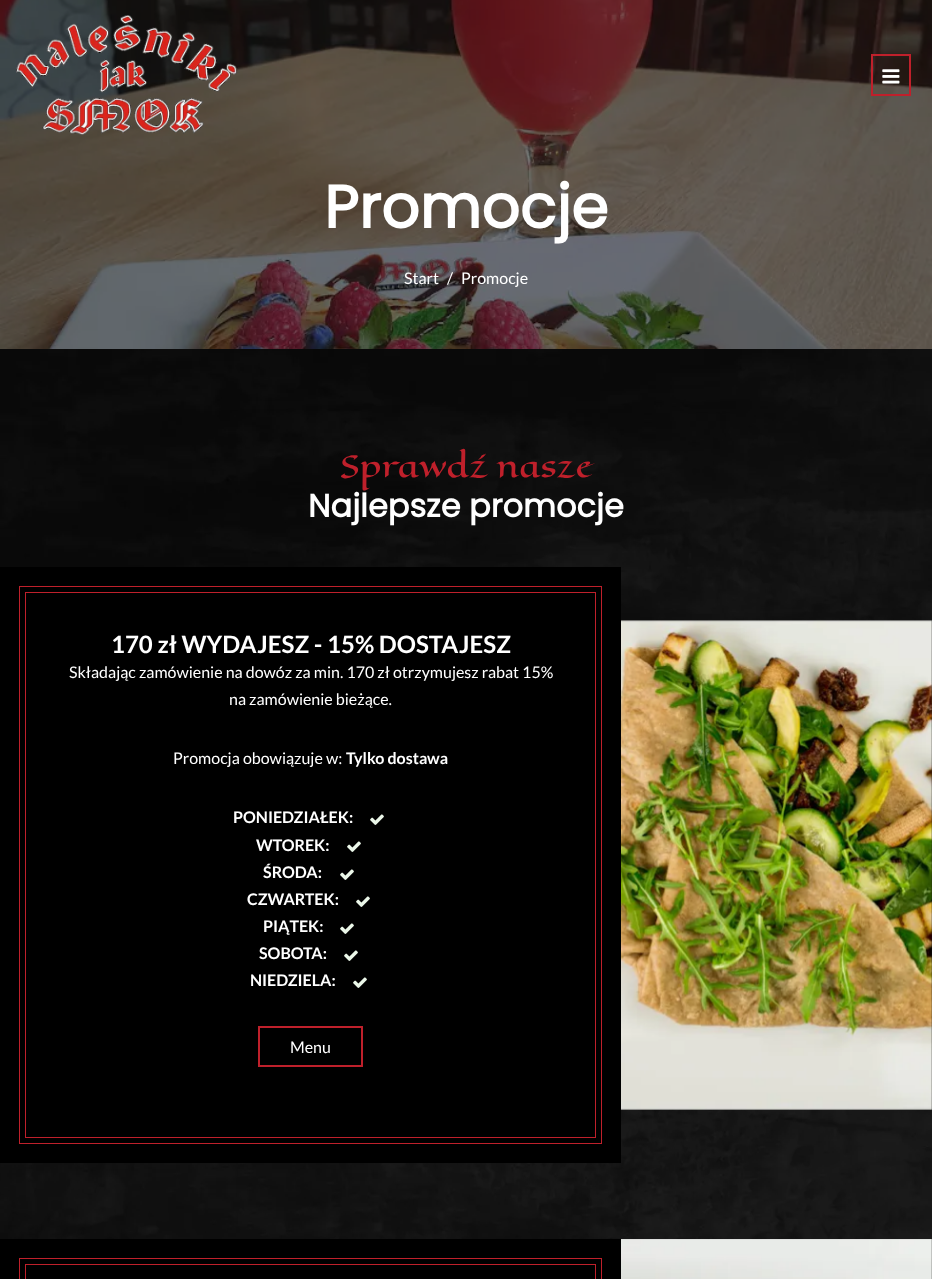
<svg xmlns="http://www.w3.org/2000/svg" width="932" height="1279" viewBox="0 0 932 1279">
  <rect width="100%" height="100%" fill="rgb(0,0,0)"/>
  <image x="0" y="0" width="932" height="349" href="pic3.png"/>
  <image x="16" y="15" width="221" height="120" href="pic1.png"/>
  <rect x="872" y="55" width="38" height="40" fill="none" stroke="rgb(191,32,43)" stroke-width="2"/>
  <image x="882" y="69" width="18" height="15" href="pic2.png"/>
  <text x="324" y="228" font-family="Poppins" font-size="60" font-weight="bold" fill="rgb(255,255,255)">Promocje</text>
  <g font-family="Lato" font-size="16" fill="rgb(255,255,255)">
    <text x="404" y="284">Start</text>
    <text x="447" y="284">/</text>
    <text x="461" y="284">Promocje</text>
  </g>
  <image x="0" y="349" width="932" height="930" href="pic4.png"/>
  <text x="340" y="477" font-family="Eagle Lake" font-size="30" fill="rgb(191,32,43)">Sprawdź nasze</text>
  <text x="308" y="517" font-family="Poppins" font-size="32" font-weight="bold" fill="rgb(255,255,255)">Najlepsze promocje</text>
  <rect x="13" y="580" width="595" height="570" fill="rgb(0,0,0)" stroke="rgb(191,32,43)" stroke-width="26"/>
  <rect x="12.5" y="579.5" width="596" height="571" fill="none" stroke="rgb(0,0,0)" stroke-width="25"/>
  <rect x="10" y="577" width="601" height="576" fill="none" stroke="rgb(191,32,43)" stroke-width="20"/>
  <rect x="9.5" y="576.5" width="602" height="577" fill="none" stroke="rgb(0,0,0)" stroke-width="19"/>
  <text x="111" y="653" font-family="Lato" font-size="24" font-weight="bold" fill="rgb(255,255,255)">170 zł WYDAJESZ - 15% DOSTAJESZ</text>
  <g font-family="Lato" font-size="16" fill="rgb(255,255,255)">
    <text x="69" y="678">Składając zamówienie na dowóz za min. 170 zł otrzymujesz rabat 15%</text>
    <text x="229" y="705">na zamówienie bieżące.</text>
    <text x="173" y="764">Promocja obowiązuje w:</text>
  </g>
  <g font-family="Lato" font-size="16" font-weight="bold" fill="rgb(255,255,255)">
    <text x="346" y="764">Tylko dostawa</text>
    <text x="233" y="823">PONIEDZIAŁEK:</text>
  </g>
  <image x="370" y="814" width="14" height="11" href="pic5.png"/>
  <text x="256" y="851" font-family="Lato" font-size="16" font-weight="bold" fill="rgb(255,255,255)">WTOREK:</text>
  <image x="347" y="841" width="14" height="11" href="pic5.png"/>
  <text x="263" y="878" font-family="Lato" font-size="16" font-weight="bold" fill="rgb(255,255,255)">ŚRODA:</text>
  <image x="340" y="869" width="14" height="11" href="pic5.png"/>
  <text x="247" y="905" font-family="Lato" font-size="16" font-weight="bold" fill="rgb(255,255,255)">CZWARTEK:</text>
  <image x="356" y="896" width="14" height="11" href="pic5.png"/>
  <text x="263" y="932" font-family="Lato" font-size="16" font-weight="bold" fill="rgb(255,255,255)">PIĄTEK:</text>
  <image x="340" y="923" width="14" height="11" href="pic5.png"/>
  <text x="259" y="959" font-family="Lato" font-size="16" font-weight="bold" fill="rgb(255,255,255)">SOBOTA:</text>
  <image x="344" y="950" width="14" height="11" href="pic5.png"/>
  <text x="250" y="986" font-family="Lato" font-size="16" font-weight="bold" fill="rgb(255,255,255)">NIEDZIELA:</text>
  <image x="353" y="977" width="14" height="11" href="pic5.png"/>
  <rect x="259" y="1027" width="103" height="39" fill="none" stroke="rgb(191,32,43)" stroke-width="2"/>
  <text x="290" y="1053" font-family="Lato" font-size="16" fill="rgb(255,255,255)">Menu</text>
  <image x="621" y="620" width="311" height="490" href="pic6.png"/>
  <rect x="13" y="1252" width="595" height="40" fill="rgb(0,0,0)" stroke="rgb(191,32,43)" stroke-width="26"/>
  <rect x="12.5" y="1251.5" width="596" height="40" fill="none" stroke="rgb(0,0,0)" stroke-width="25"/>
  <rect x="10" y="1249" width="601" height="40" fill="none" stroke="rgb(191,32,43)" stroke-width="20"/>
  <rect x="9.5" y="1248.5" width="602" height="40" fill="none" stroke="rgb(0,0,0)" stroke-width="19"/>
  <image x="621" y="1239" width="311" height="40" href="pic7.png"/>
</svg>
